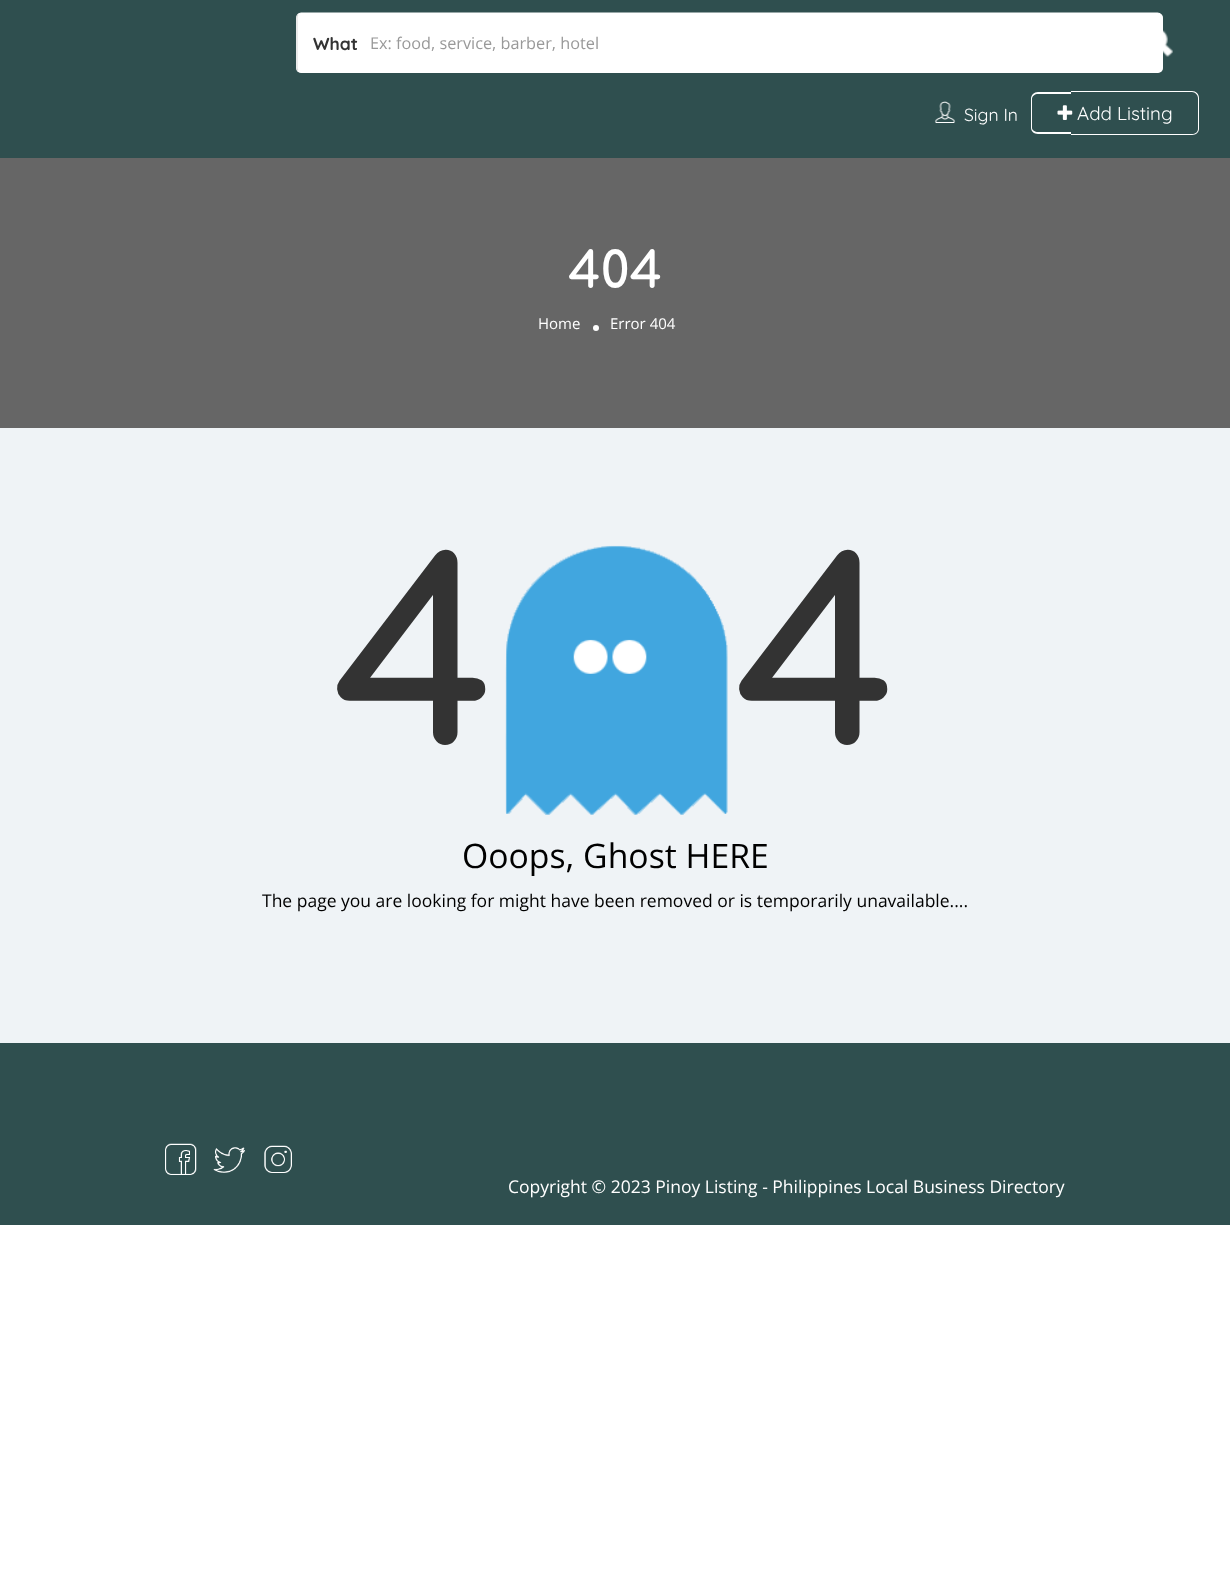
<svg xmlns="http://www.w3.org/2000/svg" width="1230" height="1581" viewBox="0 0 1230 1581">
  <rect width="100%" height="100%" fill="rgb(255,255,255)"/>
  <rect x="0" y="0" width="1230" height="158" fill="rgb(47,79,79)"/>
  <rect x="296" y="13" width="867" height="60" rx="5" fill="rgb(255,255,255)"/>
  <path d="M298 14.5C299 13.5 300 13 301 13H1157.5C1158.5 13 1160 13.5 1160.5 14.5C1161.5 15 1162 16.5 1162 17.5V67.5C1162 68.5 1161.5 70 1160.5 70.5C1160 71.5 1158.5 72 1157.5 72H301C300 72 299 71.5 298 70.5" fill="none" stroke="rgb(255,255,255)" stroke-width="1.2"/>
  <path d="M298 70.5C297.5 70 297 68.5 297 67.5V17.5C297 16.5 297.5 15 298 14.5" fill="none" stroke="rgb(222,222,222)" stroke-width="1.2"/>
  <text x="313" y="50" font-family="Quicksand" font-size="17.5" font-weight="bold" fill="rgb(51,51,51)">What</text>
  <text x="370" y="49" font-family="Open Sans" font-size="16.25" fill="rgb(153,153,153)">Ex: food, service, barber, hotel</text>
  <image x="1163" y="30" width="10" height="27" href="pic1.png"/>
  <image x="934" y="101" width="22" height="22" href="pic2.png"/>
  <text x="964" y="121" font-family="Quicksand" font-size="17.5" fill="rgb(255,255,255)">Sign In</text>
  <path d="M1038 92H1071V134H1038C1034 134 1031 131 1031 128V99C1031 95 1034 92 1038 92ZM1038 94H1071V132H1038C1035 132 1032 130 1032 128V99C1032 96 1035 94 1038 94Z" fill="rgb(255,255,255)" fill-rule="evenodd"/>
  <path d="M1071 91H1192C1196 91 1199 94 1199 98V129C1199 132 1196 135 1192 135H1071ZM1071 92H1192C1195 92 1198 95 1198 98V129C1198 132 1195 134 1192 134H1071Z" fill="rgb(255,255,255)" fill-rule="evenodd"/>
  <image x="1057" y="105" width="16" height="15" href="pic3.png"/>
  <text x="1077" y="120" font-family="Quicksand" font-size="18.75" fill="rgb(255,255,255)">Add Listing</text>
  <rect x="0" y="158" width="1230" height="270" fill="rgb(102,102,102)"/>
  <text x="568" y="288" font-family="Comfortaa" font-size="50" font-weight="bold" fill="rgb(255,255,255)">404</text>
  <text x="538" y="329" font-family="Open Sans" font-size="15" fill="rgb(255,255,255)">Home</text>
  <circle cx="596" cy="328" r="3" fill="rgb(255,255,255)"/>
  <text x="610" y="329" font-family="Open Sans" font-size="15" fill="rgb(255,255,255)">Error 404</text>
  <rect x="0" y="428" width="1230" height="615" fill="rgb(239,243,246)"/>
  <text x="332" y="745" font-family="Comfortaa" font-size="250" font-weight="bold" fill="rgb(51,51,51)">4</text>
  <image x="505" y="545" width="223" height="270" href="pic4.png"/>
  <text x="734" y="745" font-family="Comfortaa" font-size="250" font-weight="bold" fill="rgb(51,51,51)">4</text>
  <text x="462" y="868" font-family="Open Sans" font-size="33.75" fill="rgb(0,0,0)">Ooops, Ghost HERE</text>
  <text x="262" y="907" font-family="Open Sans" font-size="17.5" fill="rgb(0,0,0)">The page you are looking for might have been removed or is temporarily unavailable....</text>
  <rect x="0" y="1043" width="1230" height="182" fill="rgb(47,79,79)"/>
  <image x="165" y="1143" width="32" height="32" href="pic5.png"/>
  <image x="213" y="1147" width="32" height="26" href="pic6.png"/>
  <image x="264" y="1145" width="28" height="28" href="pic7.png"/>
  <text x="508" y="1193" font-family="Open Sans" font-size="17.5" fill="rgb(255,255,255)">Copyright © 2023 Pinoy Listing - Philippines Local Business Directory</text>
</svg>
